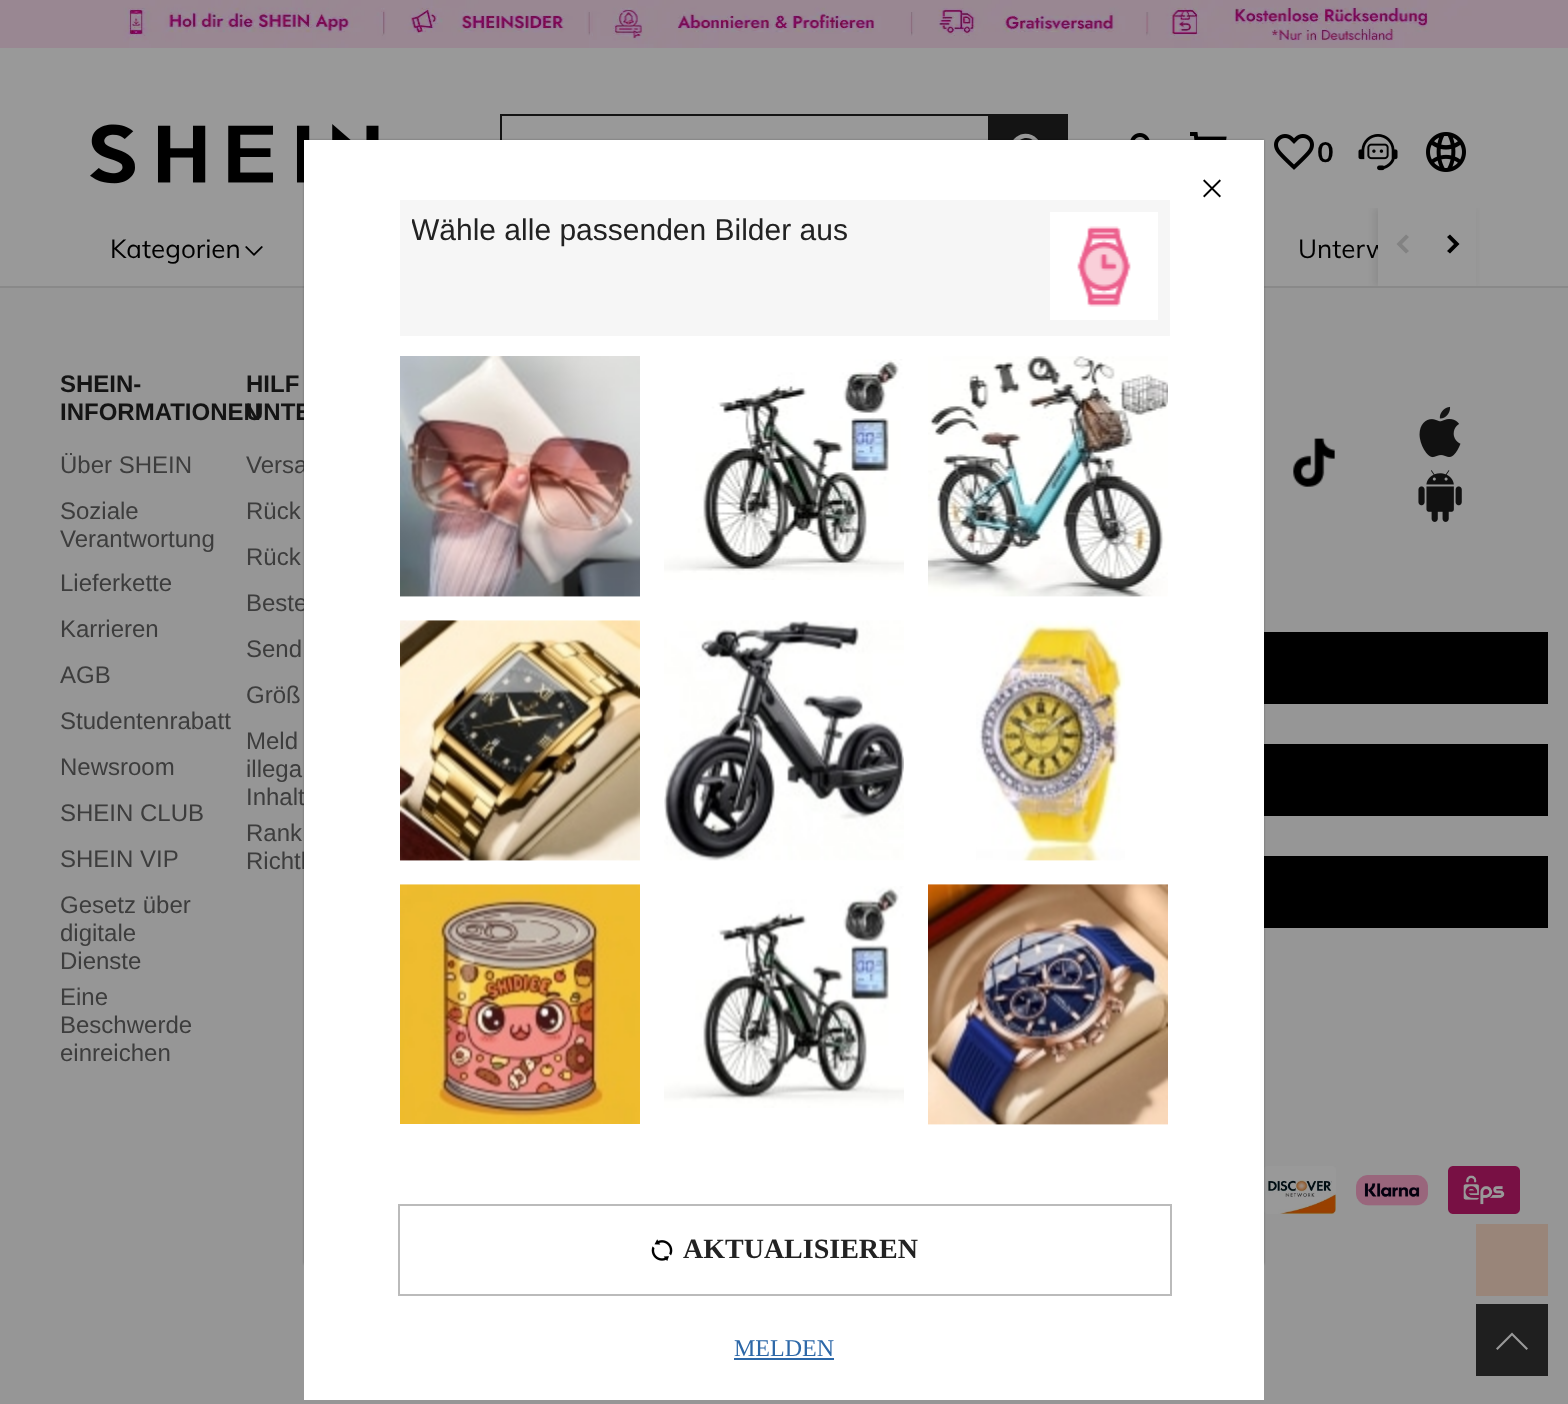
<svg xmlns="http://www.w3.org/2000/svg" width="1568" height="1404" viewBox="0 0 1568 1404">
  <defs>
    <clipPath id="clip1"><rect x="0" y="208" width="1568" height="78"/></clipPath>
    <clipPath id="clip2"><rect x="412" y="212" width="600" height="112"/></clipPath>
  </defs>
  <rect width="100%" height="100%" fill="rgb(153,153,153)"/>
  <image x="0" y="0" width="1568" height="48" href="pic1.png"/>
  <image x="90" y="124" width="289" height="60" href="pic2.png"/>
  <rect x="500" y="114" width="488" height="2" fill="rgb(20,20,20)"/>
  <rect x="500" y="114" width="2" height="26" fill="rgb(20,20,20)"/>
  <rect x="988" y="114" width="80" height="26" fill="rgb(20,20,20)"/>
  <path d="M1014.5 138.5C1028.5 124.5 1051 144 1038.5 160L1047 168.5L1044.5 171L1036 162.5C1020 175 1000.5 152.5 1014.5 138.5ZM1034.5 141.5C1023.5 130.5 1006.5 147.5 1017.5 158.5C1028.5 169.5 1045.5 152.5 1034.5 141.5Z" fill="rgb(153,153,153)" fill-rule="evenodd"/>
  <image x="1130" y="133" width="20" height="7" href="pic3.png"/>
  <image x="1190" y="132" width="37" height="8" href="pic4.png"/>
  <image x="1274" y="134" width="40" height="36" href="pic5.png"/>
  <text x="1317" y="162" font-family="Muli" font-size="28" font-weight="bold" fill="rgb(0,0,0)">0</text>
  <image x="1358" y="134" width="40" height="37" href="pic6.png"/>
  <image x="1426" y="132" width="40" height="40" href="pic7.png"/>
  <rect x="0" y="286" width="1568" height="2" fill="rgb(137,137,137)"/>
  <text x="110" y="258" font-family="Muli" font-size="26" fill="rgb(0,0,0)">Kategorien</text>
  <path d="M261.5 246L263 247L254 256L245 247L246.5 246L254 253.5Z" fill="rgb(0,0,0)"/>
  <text x="1298" y="258" font-family="Muli" font-size="26" fill="rgb(0,0,0)">Unterw</text>
  <rect x="0" y="288" width="1568" height="1116" fill="rgb(150,150,150)"/>
  <g clip-path="url(#clip1)">
    <rect x="1374" y="208" width="100" height="78" fill="rgba(0,0,0,0.08)" filter="blur(3px)"/>
  </g>
  <rect x="1378" y="208" width="98" height="78" fill="rgb(153,153,153)"/>
  <path d="M1406 234.5L1409 237L1402 244L1409 251L1406 253.5L1396.5 244Z" fill="rgb(130,130,130)" fill-rule="evenodd"/>
  <path d="M1447 237L1450 234.5L1459.5 244L1450 253.5L1447 251L1454 244Z" fill="rgb(0,0,0)" fill-rule="evenodd"/>
  <g font-family="Liberation Sans" font-size="24" font-weight="bold" fill="rgb(20,20,20)">
    <text>
      <tspan x="60" y="392">SHEIN-</tspan>
      <tspan x="60" y="420">INFORMATIONEN</tspan>
    </text>
  </g>
  <g font-family="Liberation Sans" font-size="24" fill="rgb(61,61,61)">
    <text>
      <tspan x="60" y="473">Über SHEIN</tspan>
      <tspan x="60" y="519">Soziale</tspan>
      <tspan x="60" y="547">Verantwortung</tspan>
      <tspan x="60" y="591">Lieferkette</tspan>
      <tspan x="60" y="637">Karrieren</tspan>
      <tspan x="60" y="683">AGB</tspan>
      <tspan x="60" y="729">Studentenrabatt</tspan>
      <tspan x="60" y="775">Newsroom</tspan>
      <tspan x="60" y="821">SHEIN CLUB</tspan>
      <tspan x="60" y="867">SHEIN VIP</tspan>
      <tspan x="60" y="913">Gesetz über</tspan>
      <tspan x="60" y="941">digitale</tspan>
      <tspan x="60" y="969">Dienste</tspan>
      <tspan x="60" y="1005">Eine</tspan>
      <tspan x="60" y="1033">Beschwerde</tspan>
      <tspan x="60" y="1061">einreichen</tspan>
    </text>
  </g>
  <g font-family="Liberation Sans" font-size="24" font-weight="bold" fill="rgb(20,20,20)">
    <text>
      <tspan x="246" y="392">HILF</tspan>
      <tspan x="246" y="420">UNTE</tspan>
    </text>
  </g>
  <g font-family="Liberation Sans" font-size="24" fill="rgb(61,61,61)">
    <text>
      <tspan x="246" y="473">Versa</tspan>
      <tspan x="246" y="519">Rück</tspan>
      <tspan x="246" y="565">Rück</tspan>
      <tspan x="246" y="611">Beste</tspan>
      <tspan x="246" y="657">Send</tspan>
      <tspan x="246" y="703">Größ</tspan>
      <tspan x="246" y="749">Meld</tspan>
      <tspan x="246" y="777">illega</tspan>
      <tspan x="246" y="805">Inhalt</tspan>
      <tspan x="246" y="841">Rank</tspan>
      <tspan x="246" y="869">Richtl</tspan>
    </text>
  </g>
  <image x="1293" y="438" width="42" height="49" href="pic8.png"/>
  <image x="1419" y="406" width="42" height="52" href="pic9.png"/>
  <image x="1418" y="470" width="44" height="52" href="pic10.png"/>
  <rect x="1264" y="632" width="284" height="72" fill="rgb(0,0,0)"/>
  <rect x="1264" y="744" width="284" height="72" fill="rgb(0,0,0)"/>
  <rect x="1264" y="856" width="284" height="72" fill="rgb(0,0,0)"/>
  <image x="1264" y="1166" width="72" height="48" href="pic11.png"/>
  <image x="1356" y="1175" width="72" height="31" href="pic12.png"/>
  <image x="1448" y="1166" width="72" height="48" href="pic13.png"/>
  <rect x="1476" y="1224" width="72" height="72" fill="rgb(153,133,121)"/>
  <rect x="1476" y="1304" width="72" height="72" fill="rgb(31,31,31)"/>
  <path d="M1528 1348.5L1512 1332.5L1496 1348.5L1497.5 1350L1512 1335.5L1526.5 1350Z" fill="rgb(153,153,153)"/>
  <rect x="304" y="140" width="960" height="1124" fill="rgba(0,0,0,0.3)" filter="blur(1px)"/>
  <rect x="304" y="140" width="960" height="1260" fill="rgb(255,255,255)"/>
  <image x="1203" y="179" width="18" height="19" href="pic14.png"/>
  <rect x="400" y="200" width="770" height="136" fill="rgb(246,246,246)"/>
  <g clip-path="url(#clip2)">
    <text x="411" y="240" font-family="Liberation Sans" font-size="30" fill="rgb(34,34,34)">Wähle alle passenden Bilder aus</text>
  </g>
  <rect x="1050" y="212" width="108" height="108" fill="rgb(255,255,255)"/>
  <image x="1077" y="226" width="54" height="81" href="pic15.png"/>
  <image x="400" y="356" width="240" height="241" href="pic16.png"/>
  <image x="664" y="359" width="240" height="221" href="pic17.png"/>
  <image x="928" y="356" width="240" height="241" href="pic18.png"/>
  <image x="400" y="620" width="240" height="241" href="pic19.png"/>
  <image x="664" y="620" width="240" height="241" href="pic20.png"/>
  <image x="976" y="620" width="149" height="241" href="pic21.png"/>
  <image x="400" y="884" width="240" height="240" href="pic22.png"/>
  <image x="664" y="886" width="240" height="222" href="pic23.png"/>
  <image x="928" y="884" width="240" height="241" href="pic24.png"/>
  <rect x="399" y="1205" width="772" height="90" fill="none" stroke="rgb(187,187,187)" stroke-width="2"/>
  <image x="651" y="1239" width="22" height="22" href="pic25.png"/>
  <text x="683" y="1258" font-family="Liberation Serif" font-size="28" font-weight="bold" fill="rgb(34,34,34)">AKTUALISIEREN</text>
  <text x="734" y="1356" font-family="Liberation Serif" font-size="24" fill="rgb(45,104,168)">MELDEN</text>
  <rect x="734" y="1358" width="100" height="2" fill="rgb(45,104,168)"/>
</svg>
